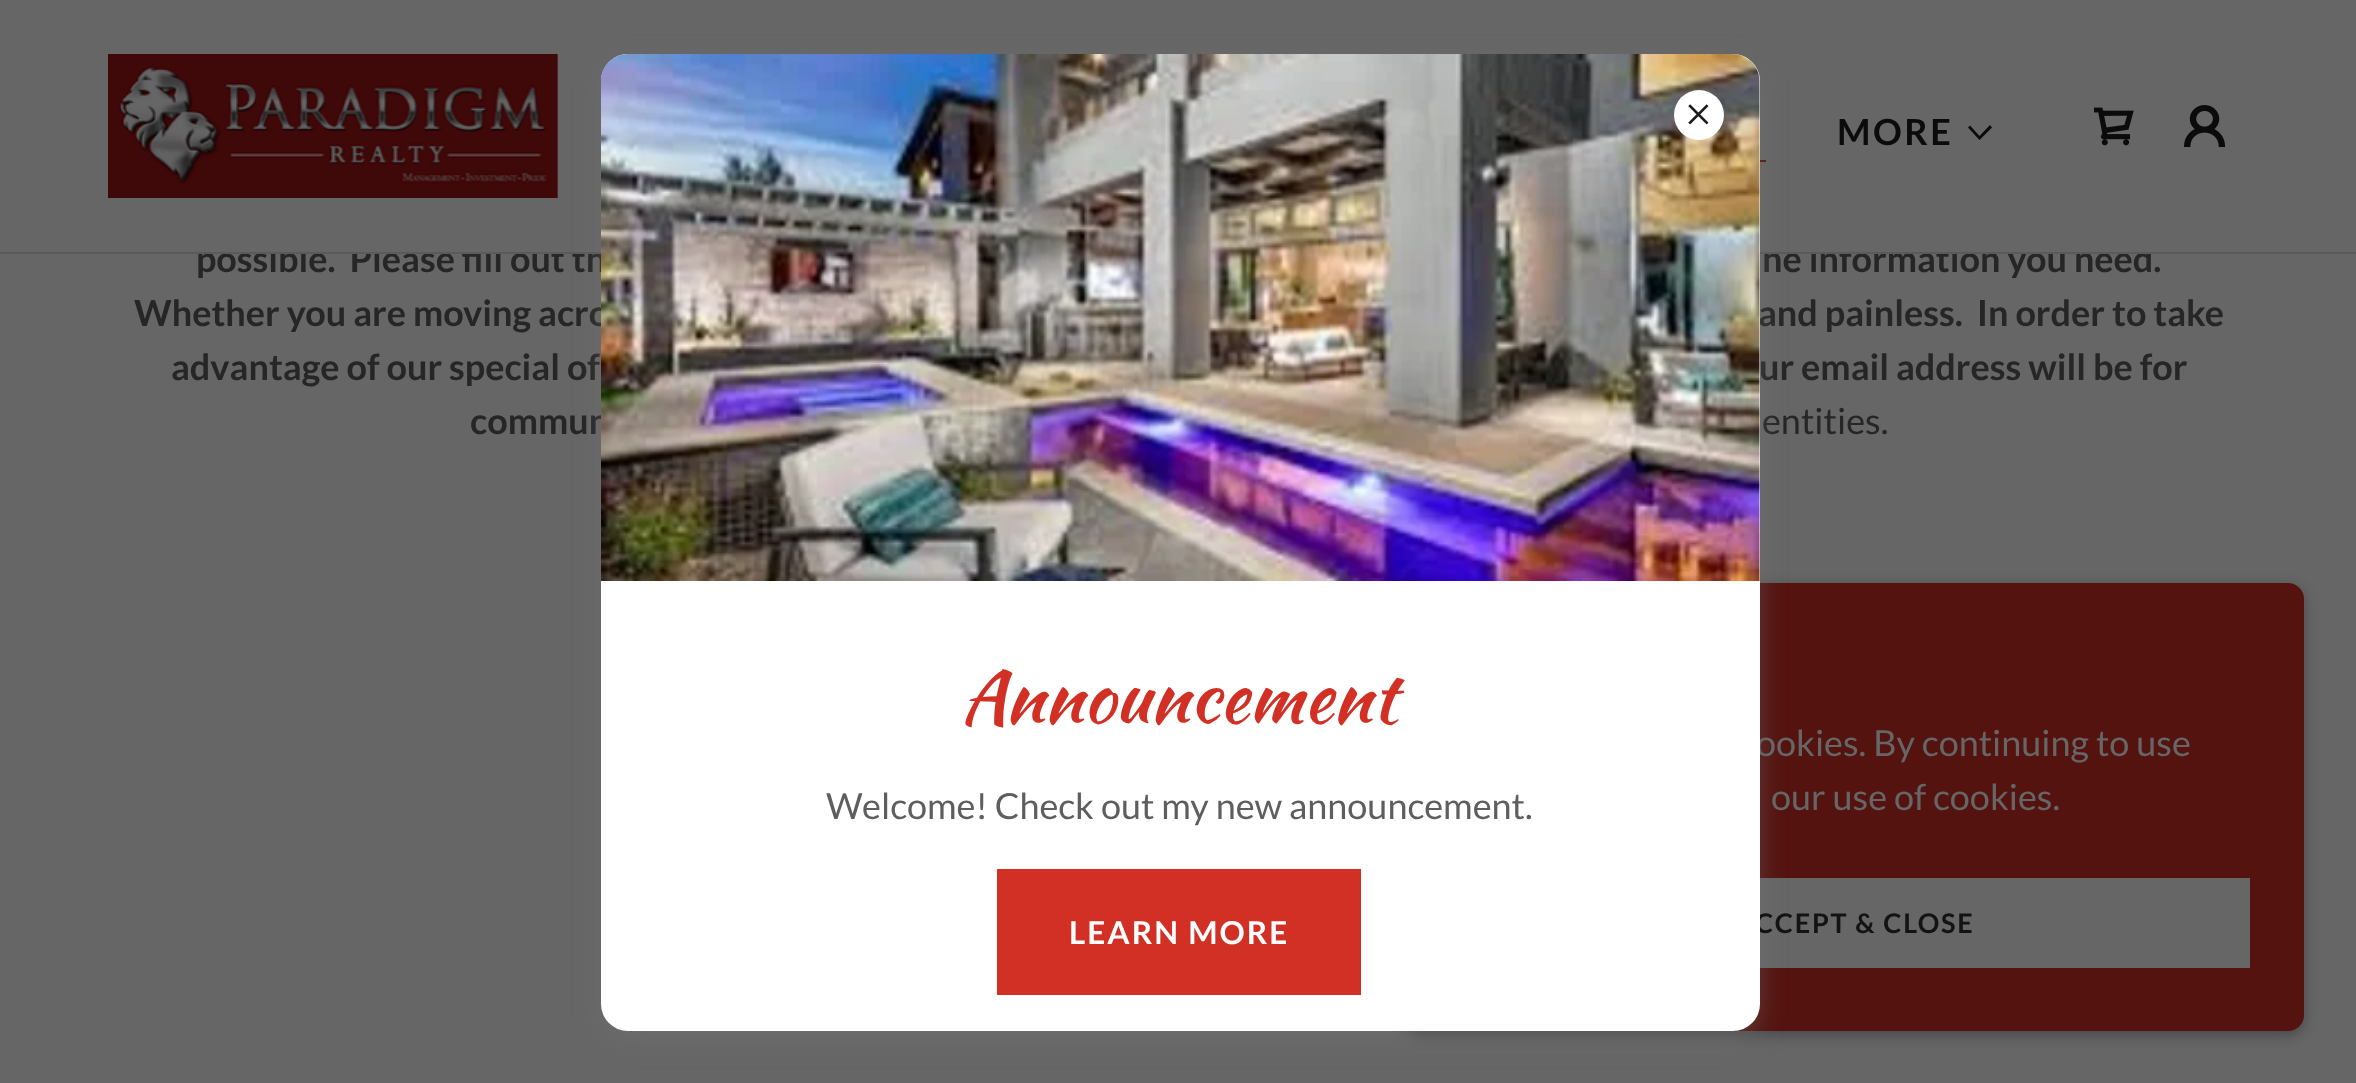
<svg xmlns="http://www.w3.org/2000/svg" width="2356" height="1083" viewBox="0 0 2356 1083">
  <rect width="100%" height="100%" fill="rgb(102,102,102)"/>
  <g font-family="Lato" font-size="36" font-weight="bold" fill="rgb(38,38,38)">
    <text x="196" y="272" xml:space="preserve">possible.  Please fill out th</text>
    <text x="1762" y="272">he information you need.</text>
  </g>
  <rect x="270" y="245" width="1882" height="7" fill="rgb(102,102,102)"/>
  <image x="108" y="54" width="450" height="144" href="pic1.png"/>
  <text x="1837" y="145" font-family="Lato" font-size="36" font-weight="bold" letter-spacing="2.5" fill="rgb(11,11,11)">MORE</text>
  <path d="M1990 125L1979.5 136L1970 125.5L1968 127.5L1979.5 140L1992 127.5Z" fill="rgb(11,11,11)" fill-rule="evenodd"/>
  <rect x="1760" y="160" width="6" height="2" fill="rgb(84,19,15)"/>
  <image x="2094" y="107" width="40" height="39" href="pic2.png"/>
  <image x="2184" y="105" width="42" height="42" href="pic3.png"/>
  <rect x="0" y="252" width="2356" height="2" fill="rgb(90,90,90)"/>
  <g font-family="Lato" font-size="36" font-weight="bold" fill="rgb(38,38,38)">
    <text x="134" y="326">Whether you are moving acro</text>
    <text x="1758" y="326" xml:space="preserve">and painless.  In order to take</text>
    <text x="171" y="380">advantage of our special of</text>
    <text x="1759" y="380">ur email address will be for</text>
    <text x="470" y="434">commun</text>
  </g>
  <text x="1762" y="434" font-family="Lato" font-size="36" fill="rgb(38,38,38)">entities.</text>
  <rect x="1404" y="587" width="900" height="448" rx="16" fill="rgba(0,0,0,0.3)" filter="blur(7px)"/>
  <rect x="1404" y="583" width="900" height="448" rx="16" fill="rgb(84,19,15)"/>
  <rect x="1760" y="878" width="490" height="90" fill="rgb(102,102,102)"/>
  <rect x="601" y="63" width="1159" height="977" rx="27" fill="rgba(117,117,117,0.4)" filter="blur(13.5px)"/>
  <text x="1756" y="756" font-family="Lato" font-size="36" fill="rgb(102,102,102)">ookies. By continuing to use</text>
  <text x="1755" y="933" font-family="Lato" font-size="27" font-weight="bold" letter-spacing="1.75" fill="rgb(19,19,19)">CCEPT &amp; CLOSE</text>
  <rect x="601" y="54" width="1159" height="977" rx="27" fill="rgb(255,255,255)"/>
  <image x="601" y="54" width="1159" height="527" href="pic5.png"/>
  <circle cx="1699" cy="115" r="25" fill="rgb(255,255,255)"/>
  <image x="1688" y="104" width="21" height="21" href="pic4.png"/>
  <text x="961" y="722" font-family="Kaushan Script" font-size="72" fill="rgb(210,47,37)">Announcement</text>
  <text x="826" y="819" font-family="Lato" font-size="36" fill="rgb(94,94,94)">Welcome! Check out my new announcement.</text>
  <rect x="997" y="869" width="364" height="126" fill="rgb(210,47,37)"/>
  <text x="1069" y="944" font-family="Lato" font-size="31.5" font-weight="bold" letter-spacing="2" fill="rgb(255,255,255)">LEARN MORE</text>
  <text x="1771" y="810" font-family="Lato" font-size="36" fill="rgb(102,102,102)">our use of cookies.</text>
</svg>
